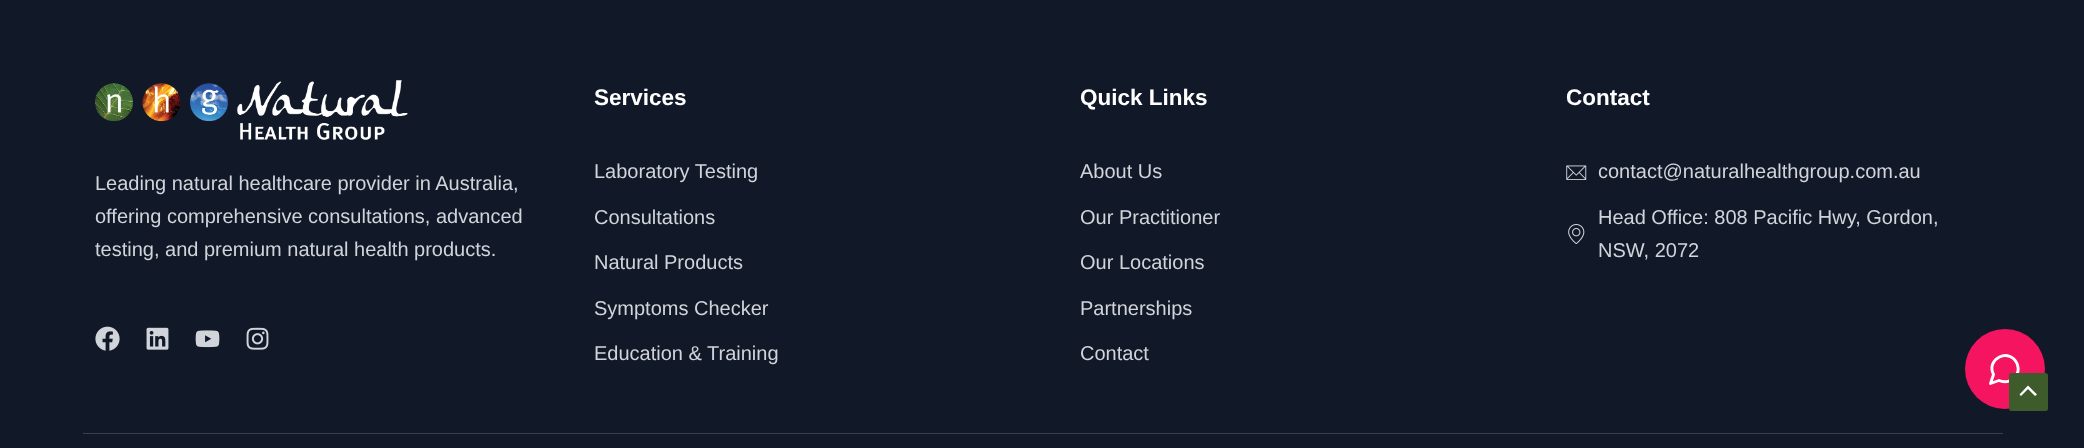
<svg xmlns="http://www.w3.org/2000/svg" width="2084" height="448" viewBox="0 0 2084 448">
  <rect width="100%" height="100%" fill="rgb(17,24,39)"/>
  <image x="95" y="80" width="313" height="60" href="pic1.png"/>
  <g font-family="Liberation Sans" font-size="20" fill="rgb(209,213,219)">
    <text>
      <tspan x="95" y="190">Leading natural healthcare provider in Australia,</tspan>
      <tspan x="95" y="223">offering comprehensive consultations, advanced</tspan>
      <tspan x="95" y="256">testing, and premium natural health products.</tspan>
    </text>
  </g>
  <image x="95" y="326" width="25" height="25" href="pic2.png"/>
  <image x="146" y="327" width="23" height="23" href="pic3.png"/>
  <image x="195" y="330" width="25" height="18" href="pic4.png"/>
  <image x="246" y="327" width="23" height="23" href="pic5.png"/>
  <text x="594" y="105" font-family="Liberation Sans" font-size="22.5" font-weight="bold" fill="rgb(255,255,255)">Services</text>
  <g font-family="Liberation Sans" font-size="20" fill="rgb(209,213,219)">
    <text x="594" y="178">Laboratory Testing</text>
    <text x="594" y="224">Consultations</text>
    <text x="594" y="269">Natural Products</text>
    <text x="594" y="315">Symptoms Checker</text>
    <text x="594" y="360">Education &amp; Training</text>
  </g>
  <text x="1080" y="105" font-family="Liberation Sans" font-size="22.5" font-weight="bold" fill="rgb(255,255,255)">Quick Links</text>
  <g font-family="Liberation Sans" font-size="20" fill="rgb(209,213,219)">
    <text x="1080" y="178">About Us</text>
    <text x="1080" y="224">Our Practitioner</text>
    <text x="1080" y="269">Our Locations</text>
    <text x="1080" y="315">Partnerships</text>
    <text x="1080" y="360">Contact</text>
  </g>
  <text x="1566" y="105" font-family="Liberation Sans" font-size="22.5" font-weight="bold" fill="rgb(255,255,255)">Contact</text>
  <image x="1566" y="165" width="21" height="15" href="pic6.png"/>
  <text x="1598" y="178" font-family="Liberation Sans" font-size="20" fill="rgb(209,213,219)">contact@naturalhealthgroup.com.au</text>
  <image x="1568" y="224" width="17" height="20" href="pic7.png"/>
  <g font-family="Liberation Sans" font-size="20" fill="rgb(209,213,219)">
    <text>
      <tspan x="1598" y="224">Head Office: 808 Pacific Hwy, Gordon,</tspan>
      <tspan x="1598" y="257">NSW, 2072</tspan>
    </text>
  </g>
  <rect x="83" y="433" width="1920" height="1" fill="rgb(61,60,75)"/>
  <circle cx="2005" cy="369" r="40" fill="rgb(245,20,95)"/>
  <path d="M1999 380.5C2005.5 383.5 2013.5 381 2017 374.5C2018.5 371 2018.5 367 2017 363.5C2009.5 347 1985.5 359 1993.5 374.5L1990.5 383.5Z" fill="none" stroke="rgb(255,255,255)" stroke-width="2.9" stroke-linecap="round" stroke-linejoin="round"/>
  <rect x="2009" y="373" width="39" height="38" rx="2.5" fill="rgb(62,92,43)"/>
  <path d="M2037 394.5L2028 385.5L2019.5 394.5L2021 396L2028 389L2035 396Z" fill="rgb(255,255,255)"/>
</svg>
